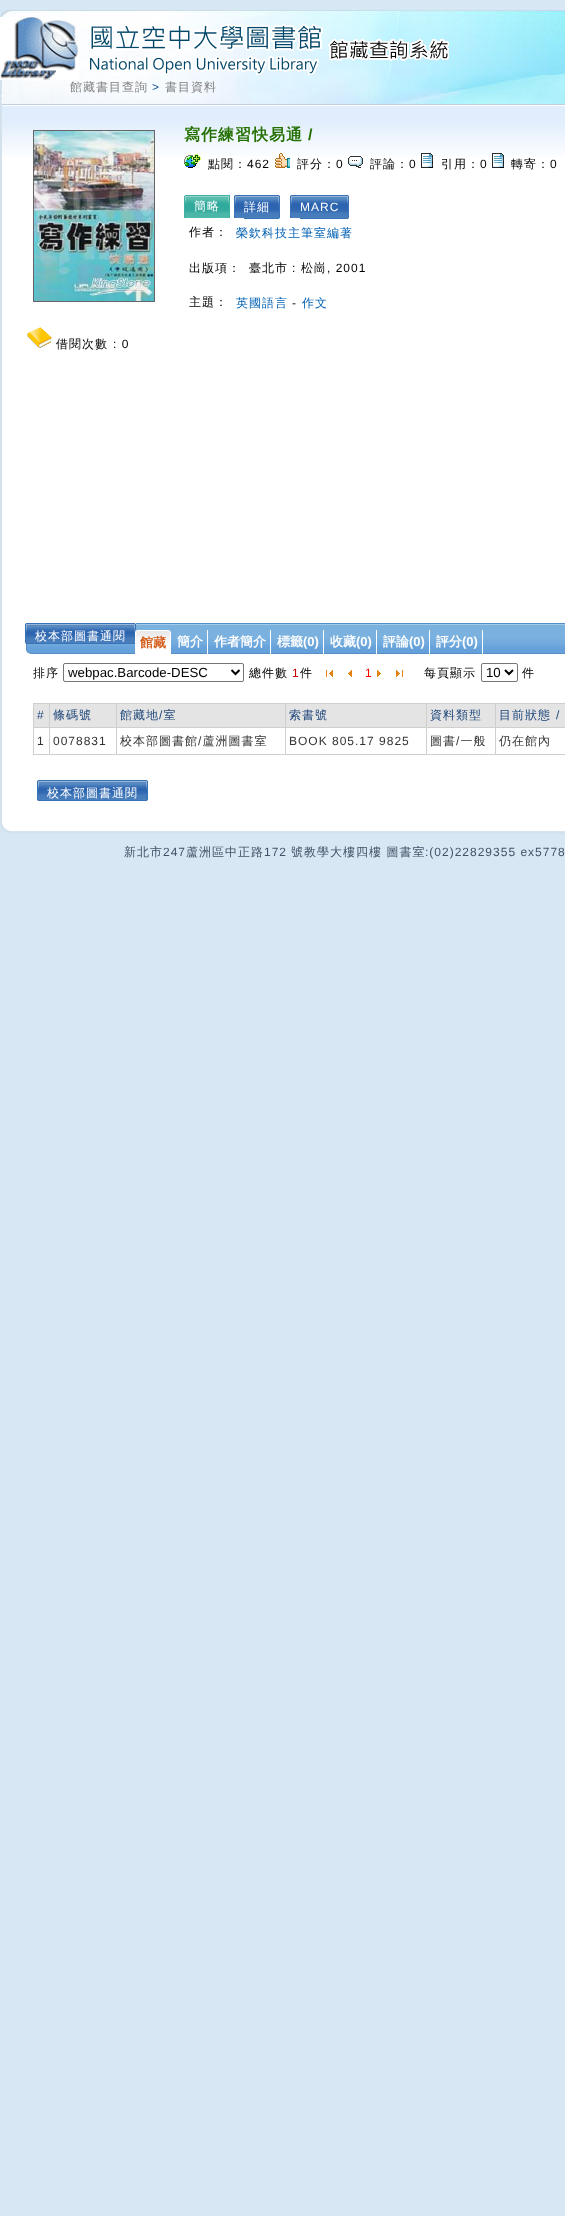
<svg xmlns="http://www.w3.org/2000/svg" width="565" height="2216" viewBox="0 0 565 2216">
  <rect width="100%" height="100%" fill="rgb(215,232,244)"/>
  <image x="0" y="80" width="565" height="742" href="pic1.png"/>
  <image x="2" y="75" width="503" height="29" href="pic2.png"/>
  <text x="70" y="91" font-family="WenQuanYi Zen Hei" font-size="12" font-weight="500" letter-spacing="1" fill="rgb(129,129,129)">館藏書目查詢</text>
  <text x="152" y="91" font-family="Liberation Sans" font-size="12" letter-spacing="1" fill="rgb(15,79,139)">&gt;</text>
  <text x="165" y="91" font-family="WenQuanYi Zen Hei" font-size="12" font-weight="500" letter-spacing="1" fill="rgb(129,129,129)">書目資料</text>
  <image x="505" y="75" width="60" height="29" href="pic3.png"/>
  <image x="0" y="0" width="565" height="75" href="pic4.png"/>
  <image x="0" y="17" width="449" height="63" href="pic5.png"/>
  <text x="0" y="102" font-family="Liberation Sans" font-size="13" letter-spacing="1" fill="rgb(255,255,255)">:</text>
  <image x="2" y="104" width="563" height="52" href="pic6.png"/>
  <text x="184" y="140" font-family="WenQuanYi Zen Hei" font-size="16" font-weight="bold" letter-spacing="1" fill="rgb(35,112,0)">寫作練習快易通</text>
  <text x="308" y="140" font-family="Liberation Sans" font-size="16" font-weight="bold" letter-spacing="1" fill="rgb(35,112,0)">/</text>
  <image x="184" y="154" width="17" height="14" href="pic7.png"/>
  <text x="208" y="168" font-family="WenQuanYi Zen Hei" font-size="12" font-weight="500" letter-spacing="1" fill="rgb(0,0,0)">點閱：</text>
  <text x="247" y="168" font-family="Liberation Sans" font-size="12" letter-spacing="1" fill="rgb(0,0,0)">462</text>
  <image x="275" y="153" width="15" height="15" href="pic8.png"/>
  <text x="297" y="168" font-family="WenQuanYi Zen Hei" font-size="12" font-weight="500" letter-spacing="1" fill="rgb(0,0,0)">評分：</text>
  <text x="336" y="168" font-family="Liberation Sans" font-size="12" letter-spacing="1" fill="rgb(0,0,0)">0</text>
  <image x="348" y="156" width="15" height="12" href="pic9.png"/>
  <text x="370" y="168" font-family="WenQuanYi Zen Hei" font-size="12" font-weight="500" letter-spacing="1" fill="rgb(0,0,0)">評論：</text>
  <text x="409" y="168" font-family="Liberation Sans" font-size="12" letter-spacing="1" fill="rgb(0,0,0)">0</text>
  <image x="421" y="153" width="12" height="15" href="pic10.png"/>
  <text x="441" y="168" font-family="WenQuanYi Zen Hei" font-size="12" font-weight="500" letter-spacing="1" fill="rgb(0,0,0)">引用：</text>
  <text x="480" y="168" font-family="Liberation Sans" font-size="12" letter-spacing="1" fill="rgb(0,0,0)">0</text>
  <image x="492" y="153" width="12" height="15" href="pic10.png"/>
  <text x="511" y="168" font-family="WenQuanYi Zen Hei" font-size="12" font-weight="500" letter-spacing="1" fill="rgb(0,0,0)">轉寄：</text>
  <text x="550" y="168" font-family="Liberation Sans" font-size="12" letter-spacing="1" fill="rgb(0,0,0)">0</text>
  <image x="184" y="195" width="46" height="23" href="pic11.png"/>
  <image x="228" y="196" width="2" height="22" href="pic12.png"/>
  <text x="194" y="210" font-family="WenQuanYi Zen Hei" font-size="12" font-weight="500" letter-spacing="1" fill="rgb(255,255,255)">簡略</text>
  <image x="234" y="195" width="10" height="23" href="pic13.png"/>
  <image x="244" y="195" width="36" height="24" href="pic14.png"/>
  <text x="244" y="211" font-family="WenQuanYi Zen Hei" font-size="12" font-weight="500" letter-spacing="1" fill="rgb(255,255,255)">詳細</text>
  <image x="290" y="195" width="10" height="23" href="pic13.png"/>
  <image x="300" y="195" width="49" height="24" href="pic15.png"/>
  <text x="300" y="211" font-family="Liberation Sans" font-size="12" letter-spacing="1" fill="rgb(255,255,255)">MARC</text>
  <text x="189" y="236" font-family="WenQuanYi Zen Hei" font-size="12" font-weight="500" letter-spacing="1" fill="rgb(0,0,0)">作者：</text>
  <text x="236" y="237" font-family="WenQuanYi Zen Hei" font-size="12" font-weight="500" letter-spacing="1" fill="rgb(0,97,180)">榮欽科技主筆室編著</text>
  <g font-family="WenQuanYi Zen Hei" font-size="12" font-weight="500" letter-spacing="1" fill="rgb(0,0,0)">
    <text x="189" y="272">出版項：</text>
    <text x="249" y="272">臺北市</text>
  </g>
  <text x="292" y="272" font-family="Liberation Sans" font-size="12" letter-spacing="1" fill="rgb(0,0,0)">:</text>
  <text x="301" y="272" font-family="WenQuanYi Zen Hei" font-size="12" font-weight="500" letter-spacing="1" fill="rgb(0,0,0)">松崗</text>
  <text x="327" y="272" font-family="Liberation Sans" font-size="12" letter-spacing="1" fill="rgb(0,0,0)">, 2001</text>
  <text x="189" y="306" font-family="WenQuanYi Zen Hei" font-size="12" font-weight="500" letter-spacing="1" fill="rgb(0,0,0)">主題：</text>
  <text x="236" y="307" font-family="WenQuanYi Zen Hei" font-size="12" font-weight="500" letter-spacing="1" fill="rgb(0,97,180)">英國語言</text>
  <text x="292" y="307" font-family="Liberation Sans" font-size="12" letter-spacing="1" fill="rgb(0,0,0)">-</text>
  <text x="302" y="307" font-family="WenQuanYi Zen Hei" font-size="12" font-weight="500" letter-spacing="1" fill="rgb(0,97,180)">作文</text>
  <rect x="33.5" y="130.5" width="121" height="171" fill="none" stroke="rgb(102,102,102)"/>
  <image x="34" y="131" width="120" height="170" href="pic16.png"/>
  <image x="27" y="327" width="25" height="21" href="pic17.png"/>
  <text x="56" y="348" font-family="WenQuanYi Zen Hei" font-size="12" font-weight="500" letter-spacing="1" fill="rgb(0,0,0)">借閱次數</text>
  <text x="113" y="348" font-family="Liberation Sans" font-size="12" letter-spacing="1" fill="rgb(0,0,0)">: 0</text>
  <image x="26" y="623" width="539" height="31" href="pic20.png"/>
  <image x="25" y="623" width="15" height="21" href="pic18.png"/>
  <image x="40" y="623" width="96" height="21" href="pic19.png"/>
  <text x="35" y="640" font-family="WenQuanYi Zen Hei" font-size="12" font-weight="500" letter-spacing="1" fill="rgb(255,255,255)">校本部圖書通閱</text>
  <image x="135" y="630" width="36" height="24" href="pic21.png"/>
  <image x="135" y="630" width="2" height="13" href="pic22.png"/>
  <text x="140" y="647" font-family="WenQuanYi Zen Hei" font-size="13" font-weight="bold" fill="rgb(213,89,21)">館藏</text>
  <rect x="207" y="630" width="1" height="24" fill="rgb(255,255,255)"/>
  <text x="177" y="646" font-family="WenQuanYi Zen Hei" font-size="13" font-weight="bold" fill="rgb(255,255,255)">簡介</text>
  <rect x="270" y="630" width="1" height="24" fill="rgb(255,255,255)"/>
  <text x="214" y="646" font-family="WenQuanYi Zen Hei" font-size="13" font-weight="bold" fill="rgb(255,255,255)">作者簡介</text>
  <rect x="323" y="630" width="1" height="24" fill="rgb(255,255,255)"/>
  <text x="277" y="646" font-family="WenQuanYi Zen Hei" font-size="13" font-weight="bold" fill="rgb(255,255,255)">標籤</text>
  <text x="303" y="646" font-family="Liberation Sans" font-size="13" font-weight="bold" fill="rgb(255,255,255)">(0)</text>
  <rect x="376" y="630" width="1" height="24" fill="rgb(255,255,255)"/>
  <text x="330" y="646" font-family="WenQuanYi Zen Hei" font-size="13" font-weight="bold" fill="rgb(255,255,255)">收藏</text>
  <text x="356" y="646" font-family="Liberation Sans" font-size="13" font-weight="bold" fill="rgb(255,255,255)">(0)</text>
  <rect x="429" y="630" width="1" height="24" fill="rgb(255,255,255)"/>
  <text x="383" y="646" font-family="WenQuanYi Zen Hei" font-size="13" font-weight="bold" fill="rgb(255,255,255)">評論</text>
  <text x="409" y="646" font-family="Liberation Sans" font-size="13" font-weight="bold" fill="rgb(255,255,255)">(0)</text>
  <rect x="482" y="630" width="1" height="24" fill="rgb(255,255,255)"/>
  <text x="436" y="646" font-family="WenQuanYi Zen Hei" font-size="13" font-weight="bold" fill="rgb(255,255,255)">評分</text>
  <text x="462" y="646" font-family="Liberation Sans" font-size="13" font-weight="bold" fill="rgb(255,255,255)">(0)</text>
  <text x="33" y="677" font-family="WenQuanYi Zen Hei" font-size="12" font-weight="500" letter-spacing="1" fill="rgb(0,0,0)">排序</text>
  <rect x="63.5" y="663.5" width="180" height="18" rx="1.5" fill="none" stroke="rgb(118,118,118)"/>
  <path d="M231.5 670L235.5 674L239.5 670" fill="none" stroke="rgb(0,0,0)" stroke-width="2"/>
  <text x="68" y="677" font-family="Liberation Sans" font-size="13.25" fill="rgb(0,0,0)">webpac.Barcode-DESC</text>
  <text x="249" y="677" font-family="WenQuanYi Zen Hei" font-size="12" font-weight="500" letter-spacing="1" fill="rgb(0,0,0)">總件數</text>
  <text x="292" y="677" font-family="Liberation Sans" font-size="12" letter-spacing="1" fill="rgb(204,0,0)">1</text>
  <text x="300" y="677" font-family="WenQuanYi Zen Hei" font-size="12" font-weight="500" letter-spacing="1" fill="rgb(0,0,0)">件</text>
  <image x="326" y="670" width="7" height="7" href="pic23.png"/>
  <image x="348" y="670" width="4" height="7" href="pic24.png"/>
  <text x="365" y="677" font-family="Liberation Sans" font-size="12" letter-spacing="1" fill="rgb(255,0,0)">1</text>
  <image x="377" y="670" width="4" height="7" href="pic25.png"/>
  <image x="396" y="670" width="7" height="7" href="pic26.png"/>
  <text x="424" y="677" font-family="WenQuanYi Zen Hei" font-size="12" font-weight="500" letter-spacing="1" fill="rgb(0,0,0)">每頁顯示</text>
  <rect x="481.5" y="663.5" width="36" height="18" rx="1.5" fill="none" stroke="rgb(118,118,118)"/>
  <path d="M505 670L509 674L513 670" fill="none" stroke="rgb(0,0,0)" stroke-width="2"/>
  <text x="486" y="677" font-family="Liberation Sans" font-size="13.25" fill="rgb(0,0,0)">10</text>
  <text x="522" y="677" font-family="WenQuanYi Zen Hei" font-size="12" font-weight="500" letter-spacing="1" fill="rgb(0,0,0)">件</text>
  <rect x="33" y="703" width="532" height="1" fill="rgb(207,207,207)"/>
  <rect x="33" y="703" width="1" height="52" fill="rgb(207,207,207)"/>
  <rect x="34" y="704" width="15" height="23" fill="rgb(228,228,228)"/>
  <rect x="495" y="754" width="70" height="1" fill="rgb(207,207,207)"/>
  <rect x="495" y="727" width="1" height="28" fill="rgb(207,207,207)"/>
  <rect x="495" y="727" width="70" height="1" fill="rgb(207,207,207)"/>
  <rect x="495" y="703" width="1" height="25" fill="rgb(207,207,207)"/>
  <rect x="426" y="754" width="70" height="1" fill="rgb(207,207,207)"/>
  <rect x="426" y="727" width="1" height="28" fill="rgb(207,207,207)"/>
  <rect x="426" y="727" width="70" height="1" fill="rgb(207,207,207)"/>
  <rect x="426" y="703" width="1" height="25" fill="rgb(207,207,207)"/>
  <rect x="285" y="754" width="142" height="1" fill="rgb(207,207,207)"/>
  <rect x="285" y="727" width="1" height="28" fill="rgb(207,207,207)"/>
  <rect x="285" y="727" width="142" height="1" fill="rgb(207,207,207)"/>
  <rect x="285" y="703" width="1" height="25" fill="rgb(207,207,207)"/>
  <rect x="116" y="754" width="170" height="1" fill="rgb(207,207,207)"/>
  <rect x="116" y="727" width="1" height="28" fill="rgb(207,207,207)"/>
  <rect x="116" y="727" width="170" height="1" fill="rgb(207,207,207)"/>
  <rect x="116" y="703" width="1" height="25" fill="rgb(207,207,207)"/>
  <rect x="49" y="754" width="68" height="1" fill="rgb(207,207,207)"/>
  <rect x="49" y="727" width="1" height="28" fill="rgb(207,207,207)"/>
  <rect x="49" y="727" width="68" height="1" fill="rgb(207,207,207)"/>
  <rect x="49" y="703" width="1" height="25" fill="rgb(207,207,207)"/>
  <rect x="33" y="727" width="17" height="1" fill="rgb(207,207,207)"/>
  <text x="37" y="719" font-family="Liberation Sans" font-size="12" letter-spacing="1" fill="rgb(32,72,123)">#</text>
  <rect x="50" y="704" width="66" height="23" fill="rgb(228,228,228)"/>
  <text x="53" y="719" font-family="WenQuanYi Zen Hei" font-size="12" font-weight="500" letter-spacing="1" fill="rgb(32,72,123)">條碼號</text>
  <rect x="117" y="704" width="168" height="23" fill="rgb(228,228,228)"/>
  <text x="120" y="719" font-family="WenQuanYi Zen Hei" font-size="12" font-weight="500" letter-spacing="1" fill="rgb(32,72,123)">館藏地 室</text>
  <text x="159" y="719" font-family="Liberation Sans" font-size="12" letter-spacing="1" fill="rgb(32,72,123)">/</text>
  <rect x="286" y="704" width="140" height="23" fill="rgb(228,228,228)"/>
  <text x="289" y="719" font-family="WenQuanYi Zen Hei" font-size="12" font-weight="500" letter-spacing="1" fill="rgb(32,72,123)">索書號</text>
  <rect x="427" y="704" width="68" height="23" fill="rgb(228,228,228)"/>
  <text x="430" y="719" font-family="WenQuanYi Zen Hei" font-size="12" font-weight="500" letter-spacing="1" fill="rgb(32,72,123)">資料類型</text>
  <rect x="496" y="704" width="69" height="23" fill="rgb(228,228,228)"/>
  <text x="499" y="719" font-family="WenQuanYi Zen Hei" font-size="12" font-weight="500" letter-spacing="1" fill="rgb(32,72,123)">目前狀態</text>
  <text x="556" y="719" font-family="Liberation Sans" font-size="12" letter-spacing="1" fill="rgb(32,72,123)">/</text>
  <rect x="33" y="754" width="17" height="1" fill="rgb(207,207,207)"/>
  <g font-family="Liberation Sans" font-size="12" letter-spacing="1" fill="rgb(51,51,51)">
    <text x="37" y="745">1</text>
    <text x="53" y="745">0078831</text>
  </g>
  <text x="120" y="745" font-family="WenQuanYi Zen Hei" font-size="12" font-weight="500" letter-spacing="1" fill="rgb(51,51,51)">校本部圖書館 蘆洲圖書室</text>
  <g font-family="Liberation Sans" font-size="12" letter-spacing="1" fill="rgb(51,51,51)">
    <text x="198" y="745">/</text>
    <text x="289" y="745">BOOK 805.17 9825</text>
  </g>
  <text x="430" y="745" font-family="WenQuanYi Zen Hei" font-size="12" font-weight="500" letter-spacing="1" fill="rgb(51,51,51)">圖書 一般</text>
  <text x="456" y="745" font-family="Liberation Sans" font-size="12" letter-spacing="1" fill="rgb(51,51,51)">/</text>
  <text x="499" y="745" font-family="WenQuanYi Zen Hei" font-size="12" font-weight="500" letter-spacing="1" fill="rgb(51,51,51)">仍在館內</text>
  <image x="37" y="780" width="15" height="21" href="pic18.png"/>
  <image x="52" y="780" width="96" height="21" href="pic19.png"/>
  <text x="47" y="797" font-family="WenQuanYi Zen Hei" font-size="12" font-weight="500" letter-spacing="1" fill="rgb(255,255,255)">校本部圖書通閱</text>
  <image x="0" y="822" width="565" height="44" href="pic27.png"/>
  <text x="124" y="856" font-family="WenQuanYi Zen Hei" font-size="12" font-weight="500" letter-spacing="1" fill="rgb(66,82,103)">新北市</text>
  <text x="163" y="856" font-family="Liberation Sans" font-size="12" letter-spacing="1" fill="rgb(66,82,103)">247</text>
  <text x="186" y="856" font-family="WenQuanYi Zen Hei" font-size="12" font-weight="500" letter-spacing="1" fill="rgb(66,82,103)">蘆洲區中正路</text>
  <text x="264" y="856" font-family="Liberation Sans" font-size="12" letter-spacing="1" fill="rgb(66,82,103)">172</text>
  <text x="291" y="856" font-family="WenQuanYi Zen Hei" font-size="12" font-weight="500" letter-spacing="1" fill="rgb(66,82,103)">號教學大樓四樓 圖書室</text>
  <text x="425" y="856" font-family="Liberation Sans" font-size="12" letter-spacing="1" fill="rgb(66,82,103)">:(02)22829355 ex5778</text>
</svg>
